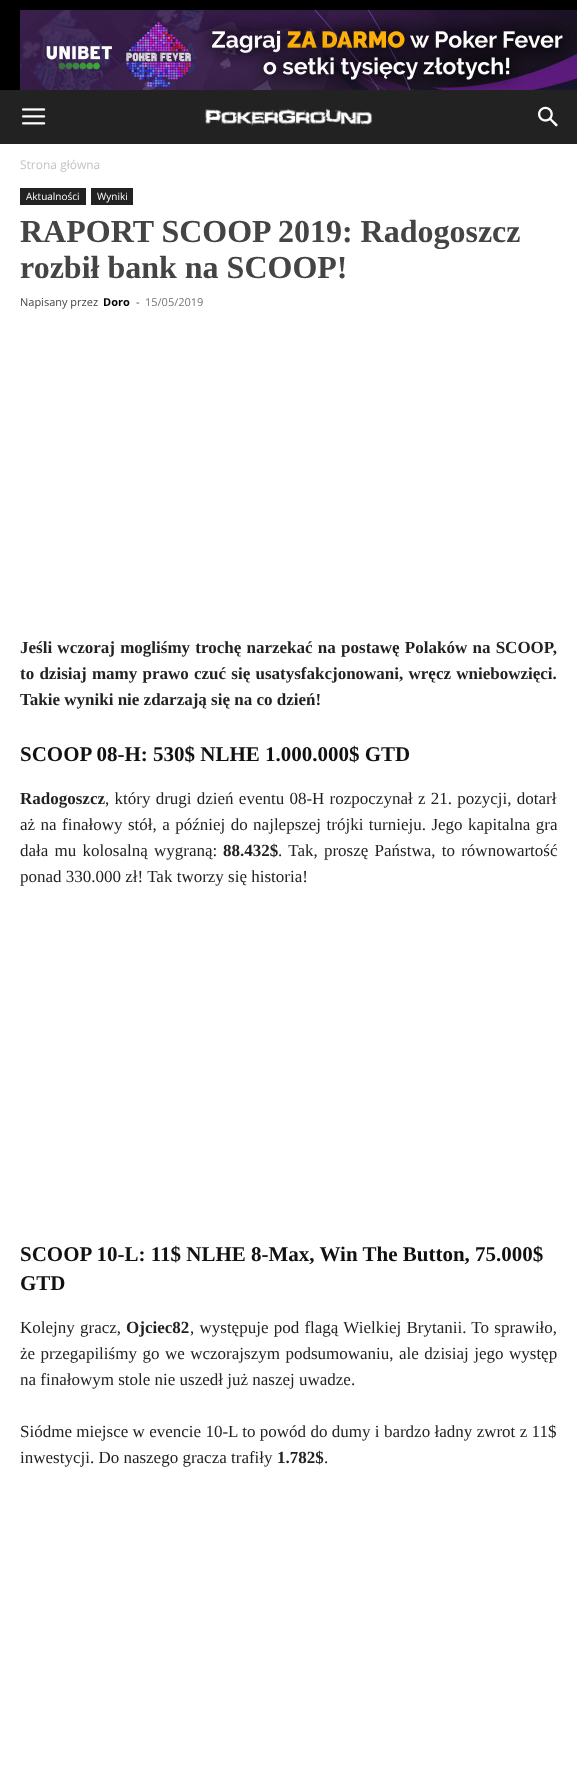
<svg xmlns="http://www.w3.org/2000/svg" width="577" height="1766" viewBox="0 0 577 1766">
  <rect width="100%" height="100%" fill="rgb(255,255,255)"/>
  <rect x="0" y="0" width="577" height="90" fill="rgb(0,0,0)"/>
  <image x="20" y="10" width="557" height="80" href="pic1.png"/>
  <rect x="0" y="90" width="577" height="54" fill="rgb(34,34,34)"/>
  <image x="22" y="108" width="24" height="17" href="pic2.png"/>
  <image x="205" y="108" width="168" height="19" href="pic3.png"/>
  <image x="538" y="106" width="20" height="21" href="pic4.png"/>
  <text x="20" y="169" font-family="Open Sans" font-size="12" fill="rgb(195,195,195)">Strona główna</text>
  <rect x="20" y="188" width="66" height="17" fill="rgb(34,34,34)"/>
  <text x="26" y="200" font-family="Open Sans" font-size="10" fill="rgb(255,255,255)">Aktualności</text>
  <rect x="91" y="188" width="42" height="17" fill="rgb(34,34,34)"/>
  <text x="97" y="200" font-family="Open Sans" font-size="10" fill="rgb(255,255,255)">Wyniki</text>
  <g font-family="Liberation Serif" font-size="32" font-weight="bold" fill="rgb(68,68,68)">
    <text>
      <tspan x="20" y="242">RAPORT SCOOP 2019: Radogoszcz</tspan>
      <tspan x="20" y="278">rozbił bank na SCOOP!</tspan>
    </text>
  </g>
  <text x="20" y="306" font-family="Open Sans" font-size="11" fill="rgb(68,68,68)">Napisany przez</text>
  <text x="103" y="306" font-family="Open Sans" font-size="11" font-weight="bold" fill="rgb(0,0,0)">Doro</text>
  <text x="136" y="306" font-family="Open Sans" font-size="11" fill="rgb(68,68,68)">-</text>
  <text x="145" y="306" font-family="Open Sans" font-size="11" fill="rgb(118,118,118)">15/05/2019</text>
  <g font-family="Liberation Serif" font-size="17" font-weight="bold" fill="rgb(34,34,34)">
    <text>
      <tspan x="20" y="653" word-spacing="1">Jeśli wczoraj mogliśmy trochę narzekać na postawę Polaków na SCOOP,</tspan>
      <tspan x="20" y="679" word-spacing="1">to dzisiaj mamy prawo czuć się usatysfakcjonowani, wręcz wniebowzięci.</tspan>
      <tspan x="20" y="705">Takie wyniki nie zdarzają się na co dzień!</tspan>
    </text>
  </g>
  <text x="20" y="761" font-family="Liberation Serif" font-size="21" font-weight="bold" fill="rgb(17,17,17)">SCOOP 08-H: 530$ NLHE 1.000.000$ GTD</text>
  <text x="20" y="804" font-family="Liberation Serif" font-size="17" font-weight="bold" fill="rgb(34,34,34)">Radogoszcz</text>
  <g font-family="Liberation Serif" font-size="17" fill="rgb(34,34,34)">
    <text x="105" y="804" word-spacing="1">, który drugi dzień eventu 08-H rozpoczynał z 21. pozycji, dotarł</text>
    <text>
      <tspan x="20" y="830" word-spacing="1.2">aż na finałowy stół, a później do najlepszej trójki turnieju. Jego kapitalna gra</tspan>
      <tspan x="20" y="856" word-spacing="2">dała mu kolosalną wygraną:</tspan>
    </text>
  </g>
  <text x="223" y="856" font-family="Liberation Serif" font-size="17" font-weight="bold" fill="rgb(34,34,34)">88.432$</text>
  <g font-family="Liberation Serif" font-size="17" fill="rgb(34,34,34)">
    <text x="278" y="856" word-spacing="2">. Tak, proszę Państwa, to równowartość</text>
    <text x="20" y="882">ponad 330.000 zł! Tak tworzy się historia!</text>
  </g>
  <g font-family="Liberation Serif" font-size="21" font-weight="bold" fill="rgb(17,17,17)">
    <text>
      <tspan x="20" y="1261">SCOOP 10-L: 11$ NLHE 8-Max, Win The Button, 75.000$</tspan>
      <tspan x="20" y="1290">GTD</tspan>
    </text>
  </g>
  <text x="20" y="1333" word-spacing="1" font-family="Liberation Serif" font-size="17" fill="rgb(34,34,34)">Kolejny gracz,</text>
  <text x="126" y="1333" font-family="Liberation Serif" font-size="17" font-weight="bold" fill="rgb(34,34,34)">Ojciec82</text>
  <g font-family="Liberation Serif" font-size="17" fill="rgb(34,34,34)">
    <text x="190" y="1333" word-spacing="1">, występuje pod flagą Wielkiej Brytanii. To sprawiło,</text>
    <text>
      <tspan x="20" y="1359" word-spacing="1.25">że przegapiliśmy go we wczorajszym podsumowaniu, ale dzisiaj jego występ</tspan>
      <tspan x="20" y="1385">na finałowym stole nie uszedł już naszej uwadze.</tspan>
    </text>
    <text>
      <tspan x="20" y="1437" word-spacing="0.1">Siódme miejsce w evencie 10-L to powód do dumy i bardzo ładny zwrot z 11$</tspan>
      <tspan x="20" y="1463">inwestycji. Do naszego gracza trafiły</tspan>
    </text>
  </g>
  <text x="277" y="1463" font-family="Liberation Serif" font-size="17" font-weight="bold" fill="rgb(34,34,34)">1.782$</text>
  <text x="324" y="1463" font-family="Liberation Serif" font-size="17" fill="rgb(34,34,34)">.</text>
</svg>
